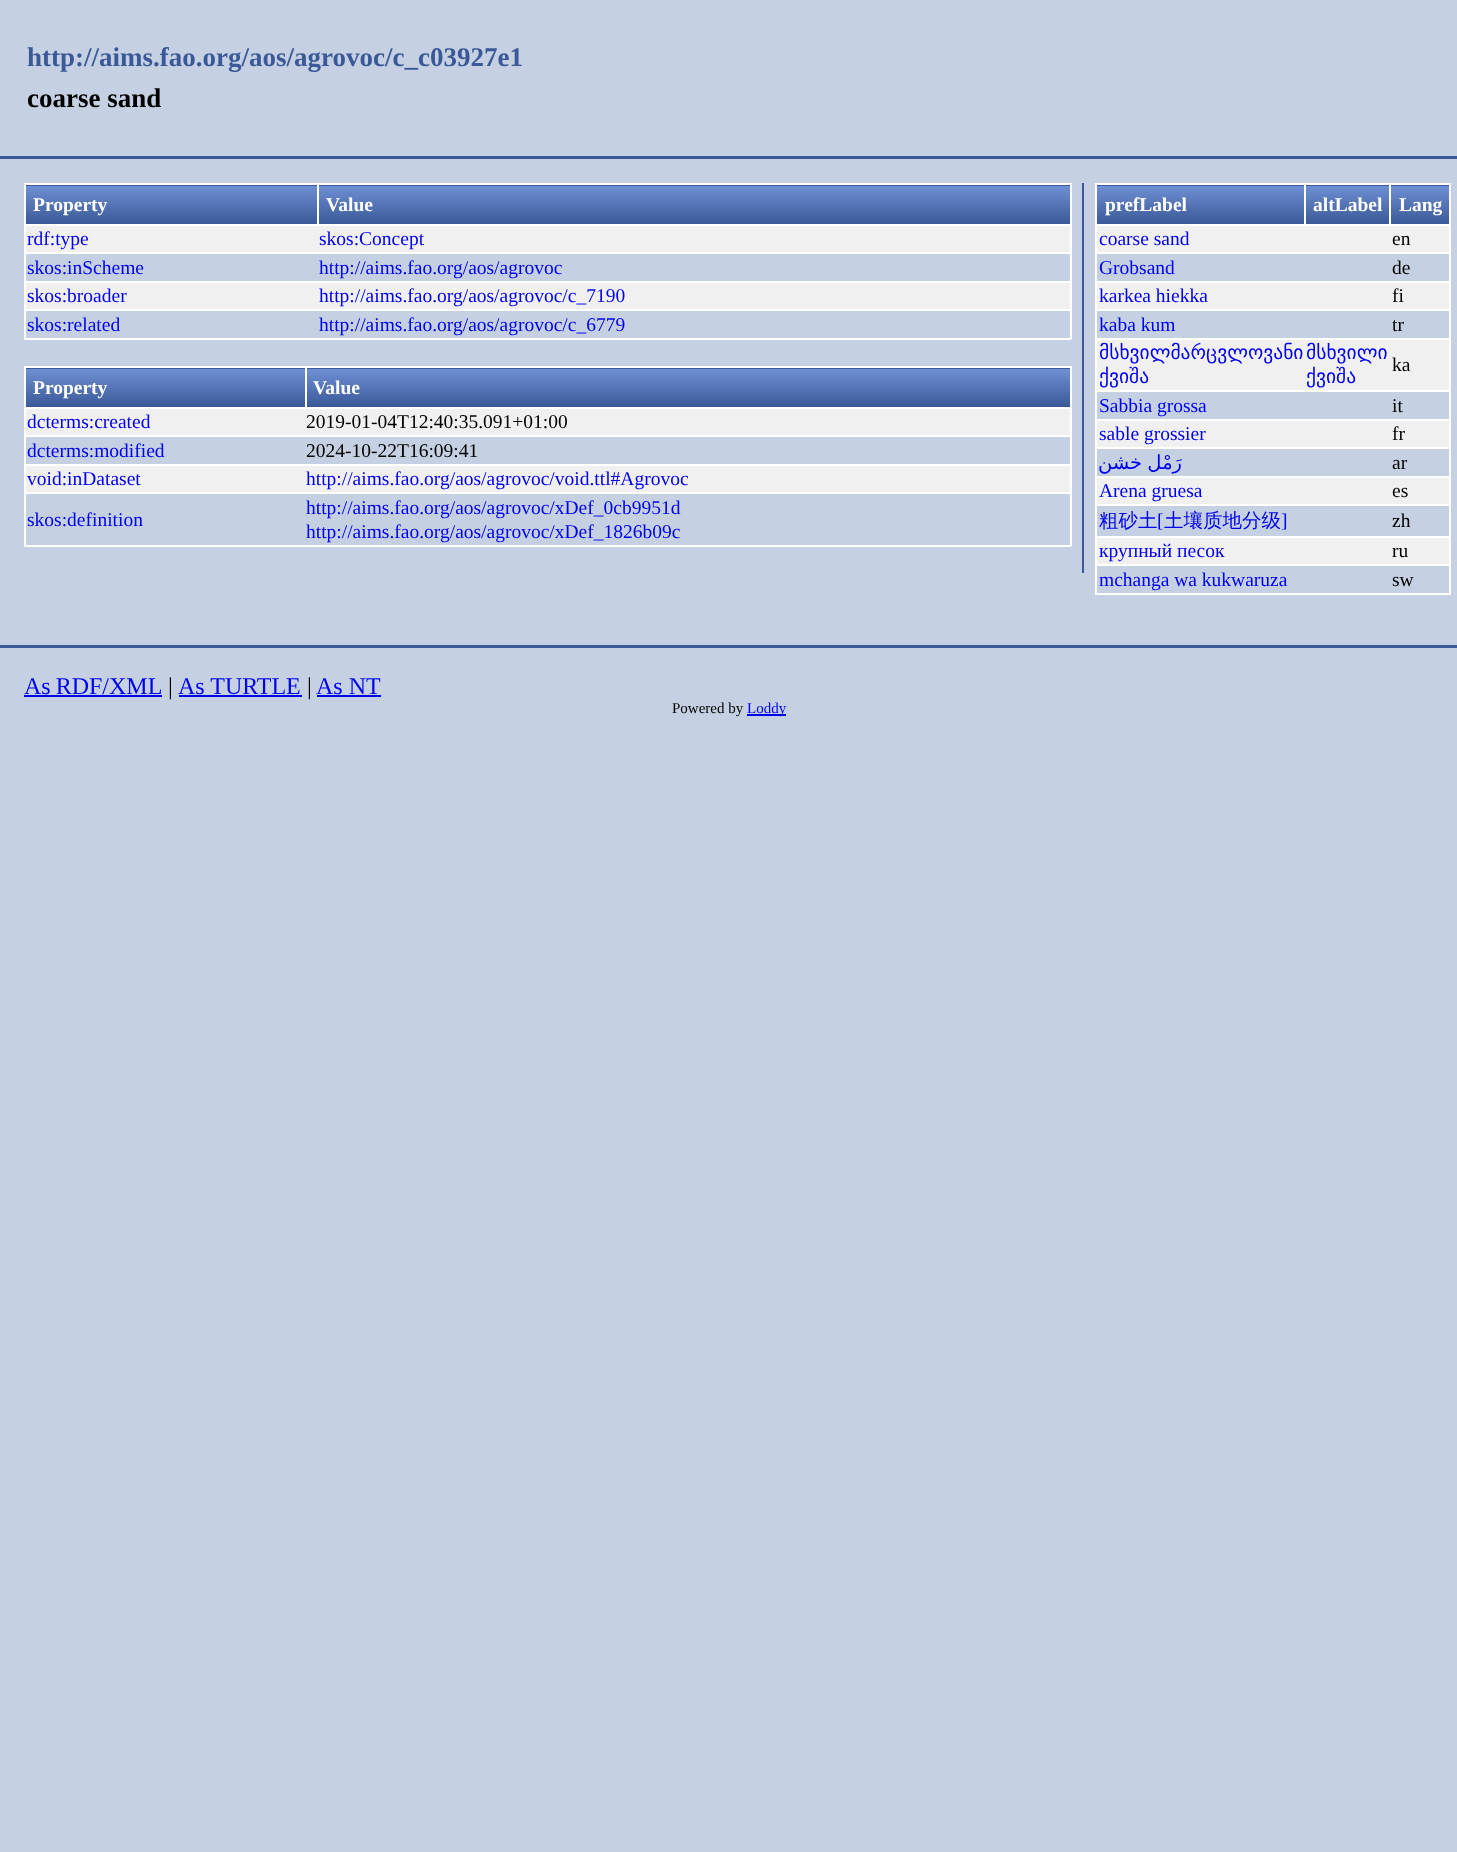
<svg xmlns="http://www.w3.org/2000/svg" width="1457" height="1852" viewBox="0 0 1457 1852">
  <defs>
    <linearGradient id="g1" gradientUnits="userSpaceOnUse" x1="172" y1="148" x2="172" y2="186"><stop offset="0" stop-color="rgb(110,143,211)"/><stop offset="1" stop-color="rgb(59,89,152)"/></linearGradient>
    <linearGradient id="g2" gradientUnits="userSpaceOnUse" x1="172" y1="186" x2="172" y2="224"><stop offset="0" stop-color="rgb(110,143,211)"/><stop offset="1" stop-color="rgb(59,89,152)"/></linearGradient>
    <linearGradient id="g3" gradientUnits="userSpaceOnUse" x1="694" y1="148" x2="694" y2="186"><stop offset="0" stop-color="rgb(110,143,211)"/><stop offset="1" stop-color="rgb(59,89,152)"/></linearGradient>
    <linearGradient id="g4" gradientUnits="userSpaceOnUse" x1="694" y1="186" x2="694" y2="224"><stop offset="0" stop-color="rgb(110,143,211)"/><stop offset="1" stop-color="rgb(59,89,152)"/></linearGradient>
    <linearGradient id="g5" gradientUnits="userSpaceOnUse" x1="165" y1="332" x2="165" y2="369"><stop offset="0" stop-color="rgb(110,143,211)"/><stop offset="1" stop-color="rgb(59,89,152)"/></linearGradient>
    <linearGradient id="g6" gradientUnits="userSpaceOnUse" x1="165" y1="369" x2="165" y2="407"><stop offset="0" stop-color="rgb(110,143,211)"/><stop offset="1" stop-color="rgb(59,89,152)"/></linearGradient>
    <linearGradient id="g7" gradientUnits="userSpaceOnUse" x1="687" y1="331" x2="687" y2="369"><stop offset="0" stop-color="rgb(110,143,211)"/><stop offset="1" stop-color="rgb(59,89,152)"/></linearGradient>
    <linearGradient id="g8" gradientUnits="userSpaceOnUse" x1="687" y1="369" x2="687" y2="407"><stop offset="0" stop-color="rgb(110,143,211)"/><stop offset="1" stop-color="rgb(59,89,152)"/></linearGradient>
    <linearGradient id="g9" gradientUnits="userSpaceOnUse" x1="1421" y1="149" x2="1421" y2="186"><stop offset="0" stop-color="rgb(110,143,211)"/><stop offset="1" stop-color="rgb(59,89,152)"/></linearGradient>
    <linearGradient id="g10" gradientUnits="userSpaceOnUse" x1="1201" y1="148" x2="1201" y2="186"><stop offset="0" stop-color="rgb(110,143,211)"/><stop offset="1" stop-color="rgb(59,89,152)"/></linearGradient>
    <linearGradient id="g11" gradientUnits="userSpaceOnUse" x1="1201" y1="186" x2="1201" y2="224"><stop offset="0" stop-color="rgb(110,143,211)"/><stop offset="1" stop-color="rgb(59,89,152)"/></linearGradient>
    <linearGradient id="g12" gradientUnits="userSpaceOnUse" x1="1348" y1="149" x2="1348" y2="186"><stop offset="0" stop-color="rgb(110,143,211)"/><stop offset="1" stop-color="rgb(59,89,152)"/></linearGradient>
    <linearGradient id="g13" gradientUnits="userSpaceOnUse" x1="1348" y1="186" x2="1348" y2="224"><stop offset="0" stop-color="rgb(110,143,211)"/><stop offset="1" stop-color="rgb(59,89,152)"/></linearGradient>
    <linearGradient id="g14" gradientUnits="userSpaceOnUse" x1="1421" y1="186" x2="1421" y2="224"><stop offset="0" stop-color="rgb(110,143,211)"/><stop offset="1" stop-color="rgb(59,89,152)"/></linearGradient>
  </defs>
  <rect width="100%" height="100%" fill="rgb(197,209,226)"/>
  <rect x="0" y="156" width="1457" height="3" fill="rgb(59,89,152)"/>
  <text x="27" y="66" font-family="Liberation Serif" font-size="27" font-weight="bold" fill="rgb(59,89,152)">http://aims.fao.org/aos/agrovoc/c_c03927e1</text>
  <text x="27" y="107" font-family="Liberation Serif" font-size="27" font-weight="bold" fill="rgb(0,0,0)">coarse sand</text>
  <rect x="1082" y="183" width="2" height="390" fill="rgb(59,89,152)"/>
  <rect x="24" y="183" width="1047" height="2" fill="rgb(255,255,255)"/>
  <rect x="1070" y="183" width="2" height="156" fill="rgb(255,255,255)"/>
  <rect x="24" y="338" width="1047" height="2" fill="rgb(255,255,255)"/>
  <rect x="24" y="183" width="2" height="156" fill="rgb(255,255,255)"/>
  <rect x="26" y="185" width="292" height="1" fill="url(#g1)"/>
  <rect x="26" y="186" width="291" height="38" fill="url(#g2)"/>
  <text x="33" y="211" font-family="Liberation Serif" font-size="19.5" font-weight="bold" fill="rgb(255,255,255)">Property</text>
  <rect x="318" y="185" width="752" height="1" fill="url(#g3)"/>
  <rect x="319" y="186" width="751" height="38" fill="url(#g4)"/>
  <rect x="24" y="224" width="1047" height="2" fill="rgb(255,255,255)"/>
  <rect x="317" y="183" width="2" height="42" fill="rgb(255,255,255)"/>
  <text x="326" y="211" font-family="Liberation Serif" font-size="19.5" font-weight="bold" fill="rgb(255,255,255)">Value</text>
  <rect x="26" y="226" width="1044" height="26" fill="rgb(240,240,240)"/>
  <g font-family="Liberation Serif" font-size="19.5" fill="rgb(0,0,238)">
    <text x="27" y="245">rdf:type</text>
    <text x="319" y="245">skos:Concept</text>
  </g>
  <rect x="24" y="252" width="1047" height="2" fill="rgb(255,255,255)"/>
  <g font-family="Liberation Serif" font-size="19.5" fill="rgb(0,0,238)">
    <text x="27" y="274">skos:inScheme</text>
    <text x="319" y="274">http://aims.fao.org/aos/agrovoc</text>
  </g>
  <rect x="26" y="283" width="1044" height="26" fill="rgb(240,240,240)"/>
  <rect x="24" y="281" width="1047" height="2" fill="rgb(255,255,255)"/>
  <g font-family="Liberation Serif" font-size="19.5" fill="rgb(0,0,238)">
    <text x="27" y="302">skos:broader</text>
    <text x="319" y="302">http://aims.fao.org/aos/agrovoc/c_7190</text>
  </g>
  <rect x="24" y="309" width="1047" height="2" fill="rgb(255,255,255)"/>
  <g font-family="Liberation Serif" font-size="19.5" fill="rgb(0,0,238)">
    <text x="27" y="331">skos:related</text>
    <text x="319" y="331">http://aims.fao.org/aos/agrovoc/c_6779</text>
  </g>
  <rect x="24" y="366" width="1047" height="2" fill="rgb(255,255,255)"/>
  <rect x="1070" y="366" width="2" height="180" fill="rgb(255,255,255)"/>
  <rect x="24" y="545" width="1047" height="2" fill="rgb(255,255,255)"/>
  <rect x="24" y="366" width="2" height="180" fill="rgb(255,255,255)"/>
  <rect x="26" y="368" width="279" height="1" fill="url(#g5)"/>
  <rect x="26" y="369" width="279" height="38" fill="url(#g6)"/>
  <text x="33" y="394" font-family="Liberation Serif" font-size="19.5" font-weight="bold" fill="rgb(255,255,255)">Property</text>
  <rect x="305" y="368" width="765" height="1" fill="url(#g7)"/>
  <rect x="307" y="369" width="763" height="38" fill="url(#g8)"/>
  <rect x="24" y="407" width="1047" height="2" fill="rgb(255,255,255)"/>
  <rect x="305" y="366" width="2" height="42" fill="rgb(255,255,255)"/>
  <text x="313" y="394" font-family="Liberation Serif" font-size="19.5" font-weight="bold" fill="rgb(255,255,255)">Value</text>
  <rect x="26" y="409" width="1044" height="26" fill="rgb(240,240,240)"/>
  <text x="27" y="428" font-family="Liberation Serif" font-size="19.5" fill="rgb(0,0,238)">dcterms:created</text>
  <text x="306" y="428" font-family="Liberation Serif" font-size="19.5" fill="rgb(0,0,0)">2019-01-04T12:40:35.091+01:00</text>
  <rect x="24" y="435" width="1047" height="2" fill="rgb(255,255,255)"/>
  <text x="27" y="457" font-family="Liberation Serif" font-size="19.5" fill="rgb(0,0,238)">dcterms:modified</text>
  <text x="306" y="457" font-family="Liberation Serif" font-size="19.5" fill="rgb(0,0,0)">2024-10-22T16:09:41</text>
  <rect x="26" y="466" width="1044" height="26" fill="rgb(240,240,240)"/>
  <rect x="24" y="464" width="1047" height="2" fill="rgb(255,255,255)"/>
  <g font-family="Liberation Serif" font-size="19.5" fill="rgb(0,0,238)">
    <text x="27" y="485">void:inDataset</text>
    <text x="306" y="485">http://aims.fao.org/aos/agrovoc/void.ttl#Agrovoc</text>
  </g>
  <rect x="24" y="492" width="1047" height="2" fill="rgb(255,255,255)"/>
  <g font-family="Liberation Serif" font-size="19.5" fill="rgb(0,0,238)">
    <text x="27" y="526">skos:definition</text>
    <text>
      <tspan x="306" y="514">http://aims.fao.org/aos/agrovoc/xDef_0cb9951d</tspan>
      <tspan x="306" y="538">http://aims.fao.org/aos/agrovoc/xDef_1826b09c</tspan>
    </text>
  </g>
  <rect x="1095" y="183" width="356" height="2" fill="rgb(255,255,255)"/>
  <rect x="1391" y="185" width="60" height="1" fill="url(#g9)"/>
  <rect x="1449" y="183" width="2" height="411" fill="rgb(255,255,255)"/>
  <rect x="1095" y="593" width="356" height="2" fill="rgb(255,255,255)"/>
  <rect x="1095" y="183" width="2" height="411" fill="rgb(255,255,255)"/>
  <rect x="1097" y="185" width="208" height="1" fill="url(#g10)"/>
  <rect x="1097" y="186" width="207" height="38" fill="url(#g11)"/>
  <text x="1105" y="211" font-family="Liberation Serif" font-size="19.5" font-weight="bold" fill="rgb(255,255,255)">prefLabel</text>
  <rect x="1305" y="185" width="86" height="1" fill="url(#g12)"/>
  <rect x="1306" y="186" width="83" height="38" fill="url(#g13)"/>
  <rect x="1095" y="224" width="356" height="2" fill="rgb(255,255,255)"/>
  <rect x="1304" y="183" width="2" height="42" fill="rgb(255,255,255)"/>
  <text x="1313" y="211" font-family="Liberation Serif" font-size="19.5" font-weight="bold" fill="rgb(255,255,255)">altLabel</text>
  <rect x="1391" y="186" width="58" height="38" fill="url(#g14)"/>
  <rect x="1389" y="183" width="2" height="42" fill="rgb(255,255,255)"/>
  <text x="1399" y="211" font-family="Liberation Serif" font-size="19.5" font-weight="bold" fill="rgb(255,255,255)">Lang</text>
  <rect x="1097" y="226" width="352" height="26" fill="rgb(240,240,240)"/>
  <text x="1099" y="245" font-family="Liberation Serif" font-size="19.5" fill="rgb(0,0,238)">coarse sand</text>
  <text x="1392" y="245" font-family="Liberation Serif" font-size="19.5" fill="rgb(0,0,0)">en</text>
  <rect x="1095" y="252" width="356" height="2" fill="rgb(255,255,255)"/>
  <text x="1099" y="274" font-family="Liberation Serif" font-size="19.5" fill="rgb(0,0,238)">Grobsand</text>
  <text x="1392" y="274" font-family="Liberation Serif" font-size="19.5" fill="rgb(0,0,0)">de</text>
  <rect x="1097" y="283" width="352" height="26" fill="rgb(240,240,240)"/>
  <rect x="1095" y="281" width="356" height="2" fill="rgb(255,255,255)"/>
  <text x="1099" y="302" font-family="Liberation Serif" font-size="19.5" fill="rgb(0,0,238)">karkea hiekka</text>
  <text x="1392" y="302" font-family="Liberation Serif" font-size="19.5" fill="rgb(0,0,0)">fi</text>
  <rect x="1095" y="309" width="356" height="2" fill="rgb(255,255,255)"/>
  <text x="1099" y="331" font-family="Liberation Serif" font-size="19.5" fill="rgb(0,0,238)">kaba kum</text>
  <text x="1392" y="331" font-family="Liberation Serif" font-size="19.5" fill="rgb(0,0,0)">tr</text>
  <rect x="1097" y="340" width="352" height="50" fill="rgb(240,240,240)"/>
  <rect x="1095" y="338" width="356" height="2" fill="rgb(255,255,255)"/>
  <g font-family="DejaVu Sans" font-size="19.5" fill="rgb(0,0,238)">
    <text>
      <tspan x="1099" y="359">მსხვილმარცვლოვანი</tspan>
      <tspan x="1099" y="383">ქვიშა</tspan>
    </text>
    <text>
      <tspan x="1306" y="359">მსხვილი</tspan>
      <tspan x="1306" y="383">ქვიშა</tspan>
    </text>
  </g>
  <text x="1392" y="371" font-family="Liberation Serif" font-size="19.5" fill="rgb(0,0,0)">ka</text>
  <rect x="1095" y="390" width="356" height="2" fill="rgb(255,255,255)"/>
  <text x="1099" y="412" font-family="Liberation Serif" font-size="19.5" fill="rgb(0,0,238)">Sabbia grossa</text>
  <text x="1392" y="412" font-family="Liberation Serif" font-size="19.5" fill="rgb(0,0,0)">it</text>
  <rect x="1097" y="421" width="352" height="26" fill="rgb(240,240,240)"/>
  <rect x="1095" y="419" width="356" height="2" fill="rgb(255,255,255)"/>
  <text x="1099" y="440" font-family="Liberation Serif" font-size="19.5" fill="rgb(0,0,238)">sable grossier</text>
  <text x="1392" y="440" font-family="Liberation Serif" font-size="19.5" fill="rgb(0,0,0)">fr</text>
  <rect x="1095" y="447" width="356" height="2" fill="rgb(255,255,255)"/>
  <text x="1182" y="469" word-spacing="-1" font-family="DejaVu Sans" font-size="19.5" direction="rtl" fill="rgb(0,0,238)">رَمْل خشن</text>
  <text x="1392" y="469" font-family="Liberation Serif" font-size="19.5" fill="rgb(0,0,0)">ar</text>
  <rect x="1097" y="478" width="352" height="26" fill="rgb(240,240,240)"/>
  <rect x="1095" y="476" width="356" height="2" fill="rgb(255,255,255)"/>
  <text x="1099" y="497" font-family="Liberation Serif" font-size="19.5" fill="rgb(0,0,238)">Arena gruesa</text>
  <text x="1392" y="497" font-family="Liberation Serif" font-size="19.5" fill="rgb(0,0,0)">es</text>
  <rect x="1095" y="504" width="356" height="2" fill="rgb(255,255,255)"/>
  <text x="1099" y="527" font-family="WenQuanYi Zen Hei" font-size="19.5" font-weight="500" fill="rgb(0,0,238)">粗砂土</text>
  <text x="1157" y="527" font-family="Liberation Serif" font-size="19.5" fill="rgb(0,0,238)">[</text>
  <text x="1164" y="527" font-family="WenQuanYi Zen Hei" font-size="19.5" font-weight="500" fill="rgb(0,0,238)">土壤质地分级</text>
  <text x="1281" y="527" font-family="Liberation Serif" font-size="19.5" fill="rgb(0,0,238)">]</text>
  <text x="1392" y="527" font-family="Liberation Serif" font-size="19.5" fill="rgb(0,0,0)">zh</text>
  <rect x="1097" y="538" width="352" height="26" fill="rgb(240,240,240)"/>
  <rect x="1095" y="536" width="356" height="2" fill="rgb(255,255,255)"/>
  <text x="1099" y="557" font-family="Liberation Serif" font-size="19.5" fill="rgb(0,0,238)">крупный песок</text>
  <text x="1392" y="557" font-family="Liberation Serif" font-size="19.5" fill="rgb(0,0,0)">ru</text>
  <rect x="1095" y="564" width="356" height="2" fill="rgb(255,255,255)"/>
  <text x="1099" y="586" font-family="Liberation Serif" font-size="19.5" fill="rgb(0,0,238)">mchanga wa kukwaruza</text>
  <text x="1392" y="586" font-family="Liberation Serif" font-size="19.5" fill="rgb(0,0,0)">sw</text>
  <rect x="0" y="645" width="1457" height="3" fill="rgb(59,89,152)"/>
  <text x="24" y="694" word-spacing="-1" font-family="Liberation Serif" font-size="24" fill="rgb(0,0,238)">As RDF/XML</text>
  <rect x="24" y="695" width="138" height="2" fill="rgb(0,0,238)"/>
  <text x="168" y="694" font-family="Liberation Serif" font-size="24" fill="rgb(0,0,0)">|</text>
  <text x="178" y="694" font-family="Liberation Serif" font-size="24" fill="rgb(0,0,238)">As TURTLE</text>
  <rect x="179" y="695" width="123" height="2" fill="rgb(0,0,238)"/>
  <text x="307" y="694" font-family="Liberation Serif" font-size="24" fill="rgb(0,0,0)">|</text>
  <text x="316" y="694" font-family="Liberation Serif" font-size="24" fill="rgb(0,0,238)">As NT</text>
  <rect x="317" y="695" width="64" height="2" fill="rgb(0,0,238)"/>
  <text x="672" y="713" font-family="Liberation Serif" font-size="15" fill="rgb(0,0,0)">Powered by</text>
  <rect x="747" y="714" width="39" height="2" fill="rgb(0,0,238)"/>
  <text x="747" y="713" font-family="Liberation Serif" font-size="15" fill="rgb(0,0,238)">Loddy</text>
</svg>
